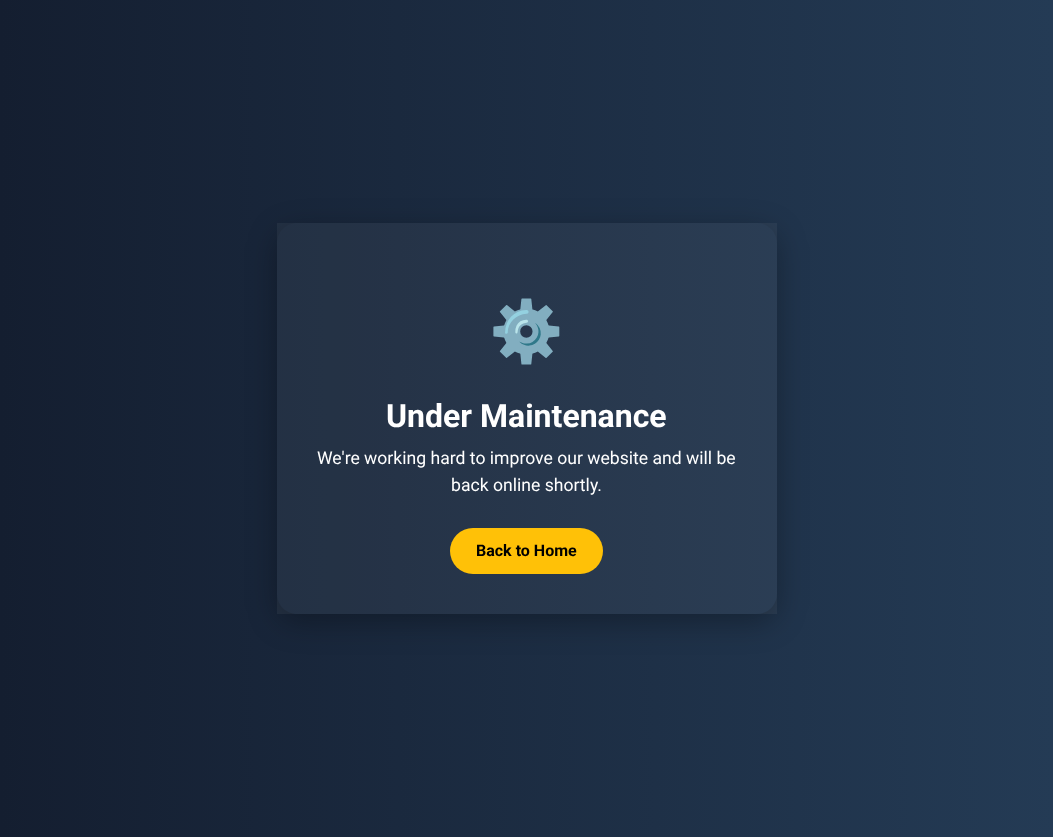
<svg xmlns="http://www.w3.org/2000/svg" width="1053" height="837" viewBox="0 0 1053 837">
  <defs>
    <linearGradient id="g1" gradientUnits="userSpaceOnUse" x1="0" y1="419" x2="1053" y2="418"><stop offset="0" stop-color="rgb(20,30,48)"/><stop offset="1" stop-color="rgb(36,59,85)"/></linearGradient>
    <clipPath id="clip1"><path d="M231 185H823V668H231ZM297 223H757C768 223 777 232 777 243V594C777 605 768 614 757 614H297C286 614 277 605 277 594V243C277 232 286 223 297 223Z" clip-rule="evenodd"/></clipPath>
  </defs>
  <rect width="100%" height="100%" fill="rgb(255,255,255)"/>
  <rect x="0" y="0" width="1053" height="837" fill="url(#g1)"/>
  <g clip-path="url(#clip1)">
    <rect x="277" y="231" width="500" height="391" rx="20" fill="rgba(0,0,0,0.3)" filter="blur(15px)"/>
  </g>
  <rect x="277" y="223" width="500" height="391" fill="rgba(255,255,255,0.05)"/>
  <text x="489" y="352" font-family="Noto Color Emoji" font-size="60" fill="rgb(255,193,7)">⚙️</text>
  <text x="386" y="427" font-family="Roboto" font-size="32" font-weight="bold" fill="rgb(255,255,255)">Under Maintenance</text>
  <g font-family="Roboto" font-size="17.6" fill="rgb(255,255,255)">
    <text x="317" y="464">We're working hard to improve our website and will be</text>
    <text x="451" y="491">back online shortly.</text>
  </g>
  <rect x="450" y="528" width="153" height="46" rx="23" fill="rgb(255,193,7)"/>
  <text x="476" y="556" font-family="Roboto" font-size="16" font-weight="bold" fill="rgb(0,0,0)">Back to Home</text>
</svg>
